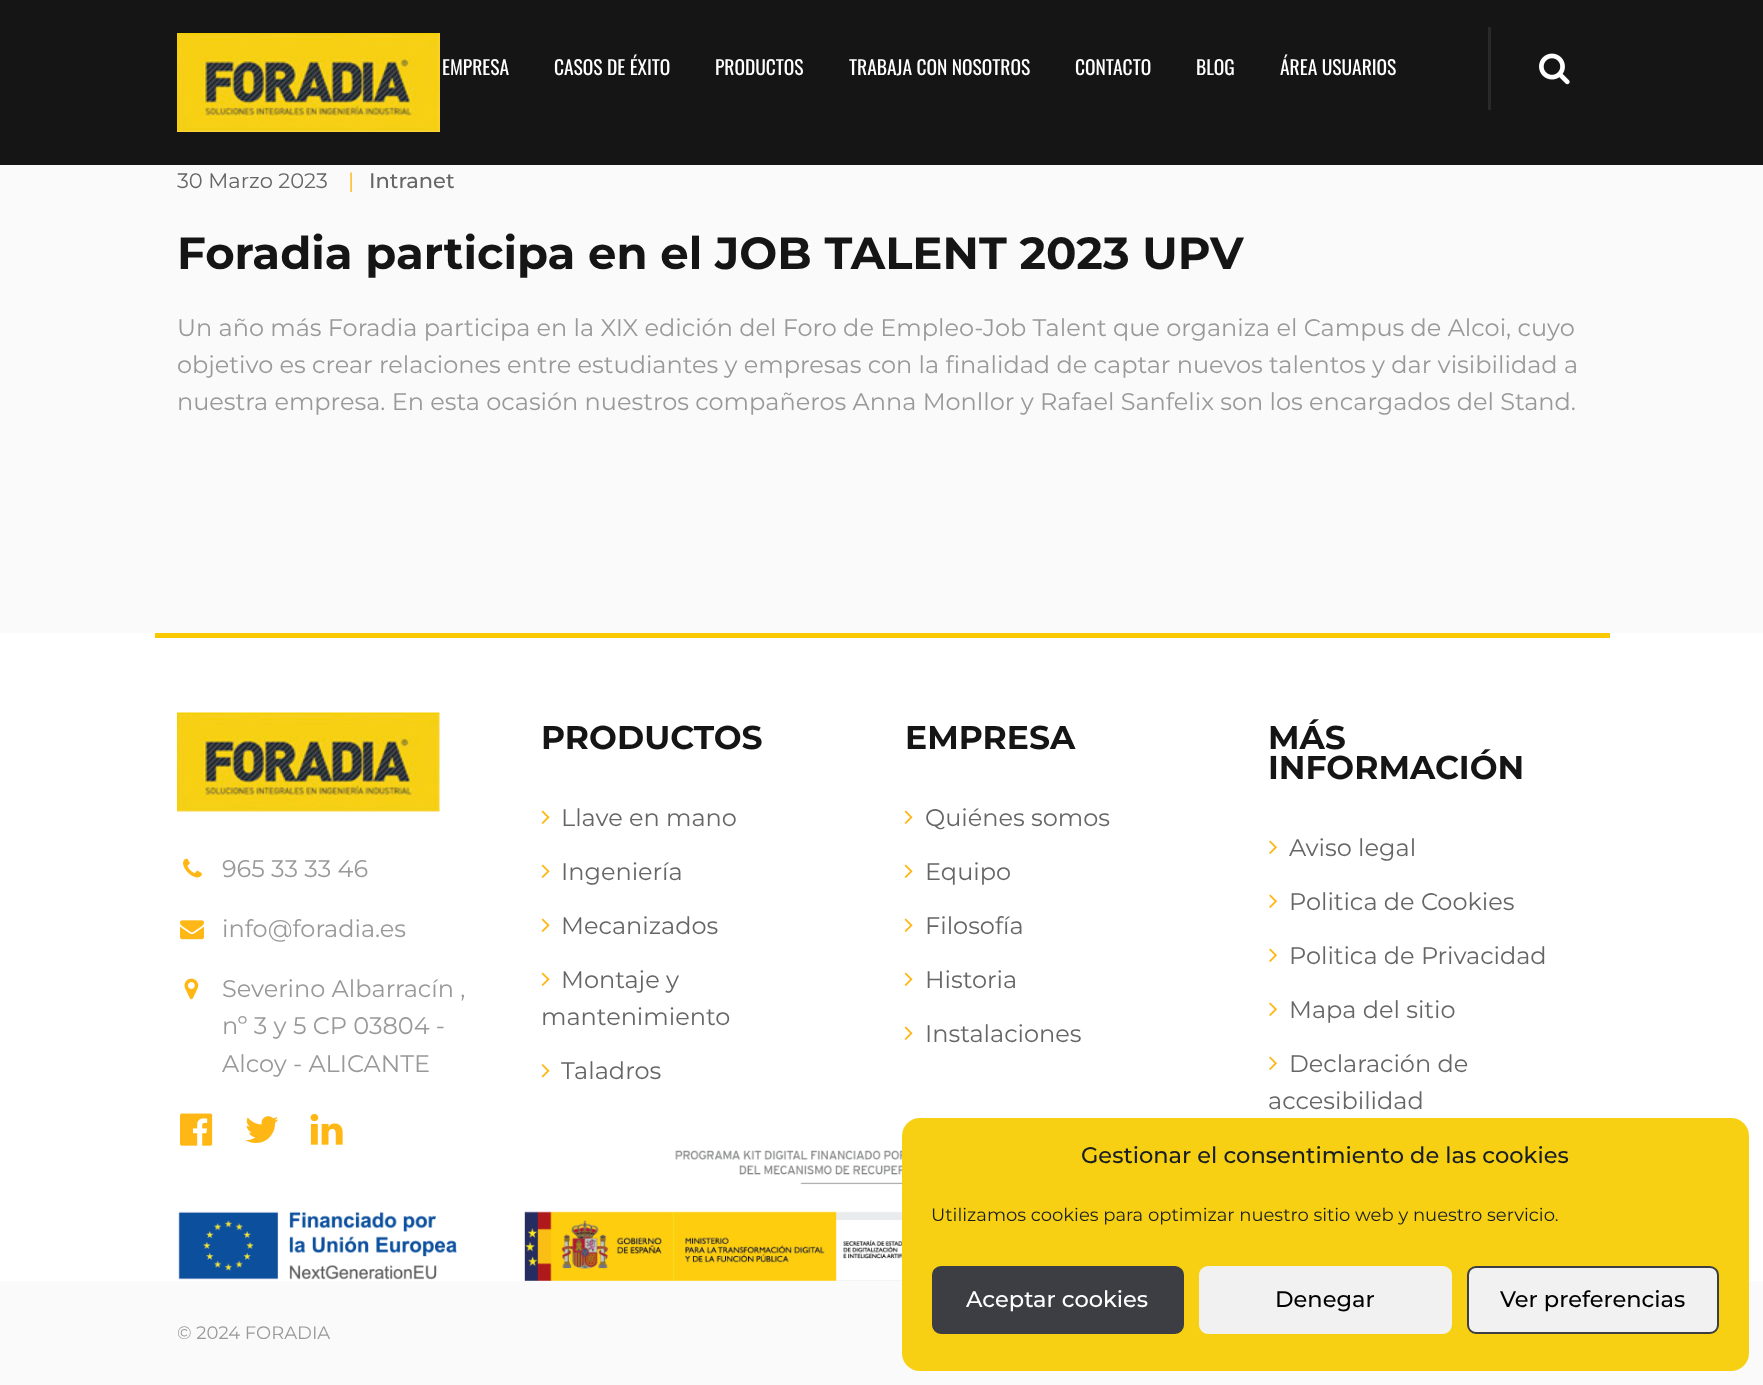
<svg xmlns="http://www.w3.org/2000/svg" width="1763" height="1385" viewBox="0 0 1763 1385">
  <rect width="100%" height="100%" fill="rgb(250,250,250)"/>
  <rect x="0" y="0" width="1763" height="165" fill="rgb(21,21,21)"/>
  <image x="177" y="33" width="263" height="99" href="pic1.png"/>
  <g font-family="Oswald" font-size="19.5" fill="rgb(255,255,255)">
    <text x="442" y="75">EMPRESA</text>
    <text x="554" y="75">CASOS DE ÉXITO</text>
    <text x="715" y="75">PRODUCTOS</text>
    <text x="849" y="75">TRABAJA CON NOSOTROS</text>
    <text x="1075" y="75">CONTACTO</text>
    <text x="1196" y="75">BLOG</text>
    <text x="1280" y="75">ÁREA USUARIOS</text>
  </g>
  <rect x="1488" y="27" width="3" height="83" fill="rgb(41,41,41)"/>
  <image x="1539" y="53" width="31" height="32" href="pic2.png"/>
  <text x="177" y="188" font-family="Montserrat" font-size="21" font-weight="100" fill="rgb(102,102,102)">30 Marzo 2023</text>
  <text x="348" y="188" font-family="Montserrat" font-size="21" font-weight="100" fill="rgb(255,183,22)">|</text>
  <text x="369" y="188" font-family="Montserrat" font-size="21" font-weight="500" fill="rgb(102,102,102)">Intranet</text>
  <text x="177" y="269" font-family="Montserrat" font-size="45" font-weight="bold" fill="rgb(21,21,21)">Foradia participa en el JOB TALENT 2023 UPV</text>
  <g font-family="Montserrat" font-size="24" font-weight="100" fill="rgb(153,153,153)">
    <text>
      <tspan x="177" y="336">Un año más Foradia participa en la XIX edición del Foro de Empleo-Job Talent que organiza el Campus de Alcoi, cuyo</tspan>
      <tspan x="177" y="373">objetivo es crear relaciones entre estudiantes y empresas con la finalidad de captar nuevos talentos y dar visibilidad a</tspan>
      <tspan x="177" y="410">nuestra empresa. En esta ocasión nuestros compañeros Anna Monllor y Rafael Sanfelix son los encargados del Stand.</tspan>
    </text>
  </g>
  <rect x="0" y="633" width="1763" height="648" fill="rgb(255,255,255)"/>
  <rect x="155" y="633" width="1455" height="5" fill="rgb(250,200,0)"/>
  <image x="177" y="712" width="263" height="100" href="pic3.png"/>
  <image x="183" y="858" width="19" height="20" href="pic4.png"/>
  <text x="222" y="877" font-family="Montserrat" font-size="24" font-weight="100" fill="rgb(153,153,153)">965 33 33 46</text>
  <image x="180" y="920" width="24" height="20" href="pic5.png"/>
  <text x="222" y="937" font-family="Montserrat" font-size="24" font-weight="100" fill="rgb(153,153,153)">info@foradia.es</text>
  <image x="184" y="978" width="15" height="22" href="pic6.png"/>
  <g font-family="Montserrat" font-size="24" font-weight="100" fill="rgb(153,153,153)">
    <text>
      <tspan x="222" y="997">Severino Albarracín ,</tspan>
      <tspan x="222" y="1034">nº 3 y 5 CP 03804 -</tspan>
      <tspan x="222" y="1072">Alcoy - ALICANTE</tspan>
    </text>
  </g>
  <image x="180" y="1113" width="33" height="33" href="pic7.png"/>
  <image x="245" y="1116" width="34" height="27" href="pic8.png"/>
  <image x="310" y="1114" width="33" height="31" href="pic9.png"/>
  <text x="541" y="749" font-family="Montserrat" font-size="33" font-weight="bold" fill="rgb(21,21,21)">PRODUCTOS</text>
  <image x="541" y="810" width="9" height="14" href="pic10.png"/>
  <text x="561" y="826" font-family="Montserrat" font-size="24" font-weight="100" fill="rgb(102,102,102)">Llave en mano</text>
  <image x="541" y="864" width="9" height="14" href="pic10.png"/>
  <text x="561" y="880" font-family="Montserrat" font-size="24" font-weight="100" fill="rgb(102,102,102)">Ingeniería</text>
  <image x="541" y="918" width="9" height="14" href="pic10.png"/>
  <text x="561" y="934" font-family="Montserrat" font-size="24" font-weight="100" fill="rgb(102,102,102)">Mecanizados</text>
  <image x="541" y="972" width="9" height="14" href="pic10.png"/>
  <g font-family="Montserrat" font-size="24" font-weight="100" fill="rgb(102,102,102)">
    <text x="561" y="988">Montaje y</text>
    <text x="541" y="1025">mantenimiento</text>
  </g>
  <image x="541" y="1064" width="9" height="14" href="pic11.png"/>
  <text x="561" y="1079" font-family="Montserrat" font-size="24" font-weight="100" fill="rgb(102,102,102)">Taladros</text>
  <text x="905" y="749" font-family="Montserrat" font-size="33" font-weight="bold" fill="rgb(21,21,21)">EMPRESA</text>
  <image x="904" y="810" width="9" height="14" href="pic10.png"/>
  <text x="925" y="826" font-family="Montserrat" font-size="24" font-weight="100" fill="rgb(102,102,102)">Quiénes somos</text>
  <image x="904" y="864" width="9" height="14" href="pic10.png"/>
  <text x="925" y="880" font-family="Montserrat" font-size="24" font-weight="100" fill="rgb(102,102,102)">Equipo</text>
  <image x="904" y="918" width="9" height="14" href="pic10.png"/>
  <text x="925" y="934" font-family="Montserrat" font-size="24" font-weight="100" fill="rgb(102,102,102)">Filosofía</text>
  <image x="904" y="972" width="9" height="14" href="pic10.png"/>
  <text x="925" y="988" font-family="Montserrat" font-size="24" font-weight="100" fill="rgb(102,102,102)">Historia</text>
  <image x="904" y="1026" width="9" height="14" href="pic10.png"/>
  <text x="925" y="1042" font-family="Montserrat" font-size="24" font-weight="100" fill="rgb(102,102,102)">Instalaciones</text>
  <g font-family="Montserrat" font-size="33" font-weight="bold" fill="rgb(21,21,21)">
    <text>
      <tspan x="1268" y="749">MÁS</tspan>
      <tspan x="1268" y="779">INFORMACIÓN</tspan>
    </text>
  </g>
  <image x="1269" y="840" width="8" height="14" href="pic12.png"/>
  <text x="1289" y="856" font-family="Montserrat" font-size="24" font-weight="100" fill="rgb(102,102,102)">Aviso legal</text>
  <image x="1269" y="894" width="8" height="14" href="pic12.png"/>
  <text x="1289" y="910" font-family="Montserrat" font-size="24" font-weight="100" fill="rgb(102,102,102)">Politica de Cookies</text>
  <image x="1269" y="948" width="8" height="14" href="pic12.png"/>
  <text x="1289" y="964" font-family="Montserrat" font-size="24" font-weight="100" fill="rgb(102,102,102)">Politica de Privacidad</text>
  <image x="1269" y="1002" width="8" height="14" href="pic12.png"/>
  <text x="1289" y="1018" font-family="Montserrat" font-size="24" font-weight="100" fill="rgb(102,102,102)">Mapa del sitio</text>
  <image x="1269" y="1056" width="8" height="14" href="pic12.png"/>
  <g font-family="Montserrat" font-size="24" font-weight="100" fill="rgb(102,102,102)">
    <text x="1289" y="1072">Declaración de</text>
    <text x="1268" y="1109">accesibilidad</text>
  </g>
  <image x="178" y="1150" width="724" height="131" href="pic13.png"/>
  <text x="177" y="1339" font-family="Montserrat" font-size="18" font-weight="100" fill="rgb(153,153,153)">© 2024 FORADIA</text>
  <rect x="902" y="1118" width="847" height="253" rx="18" fill="rgb(247,208,20)"/>
  <text x="1081" y="1163" font-family="Montserrat" font-size="22.5" font-weight="500" fill="rgb(25,30,35)">Gestionar el consentimiento de las cookies</text>
  <text x="931" y="1221" font-family="Montserrat" font-size="18" font-weight="100" fill="rgb(25,30,35)">Utilizamos cookies para optimizar nuestro sitio web y nuestro servicio.</text>
  <rect x="933" y="1267" width="250" height="66" rx="8" fill="rgb(60,62,67)" stroke="rgb(60,62,67)" stroke-width="2"/>
  <text x="966" y="1307" font-family="Montserrat" font-size="22.5" font-weight="500" fill="rgb(255,255,255)">Aceptar cookies</text>
  <rect x="1200" y="1267" width="251" height="66" rx="8" fill="rgb(241,241,241)" stroke="rgb(241,241,241)" stroke-width="2"/>
  <text x="1275" y="1307" font-family="Montserrat" font-size="22.5" font-weight="500" fill="rgb(0,0,0)">Denegar</text>
  <rect x="1468" y="1267" width="250" height="66" rx="8" fill="rgb(241,241,241)" stroke="rgb(60,62,67)" stroke-width="2"/>
  <text x="1500" y="1307" font-family="Montserrat" font-size="22.5" font-weight="500" fill="rgb(0,0,0)">Ver preferencias</text>
</svg>
